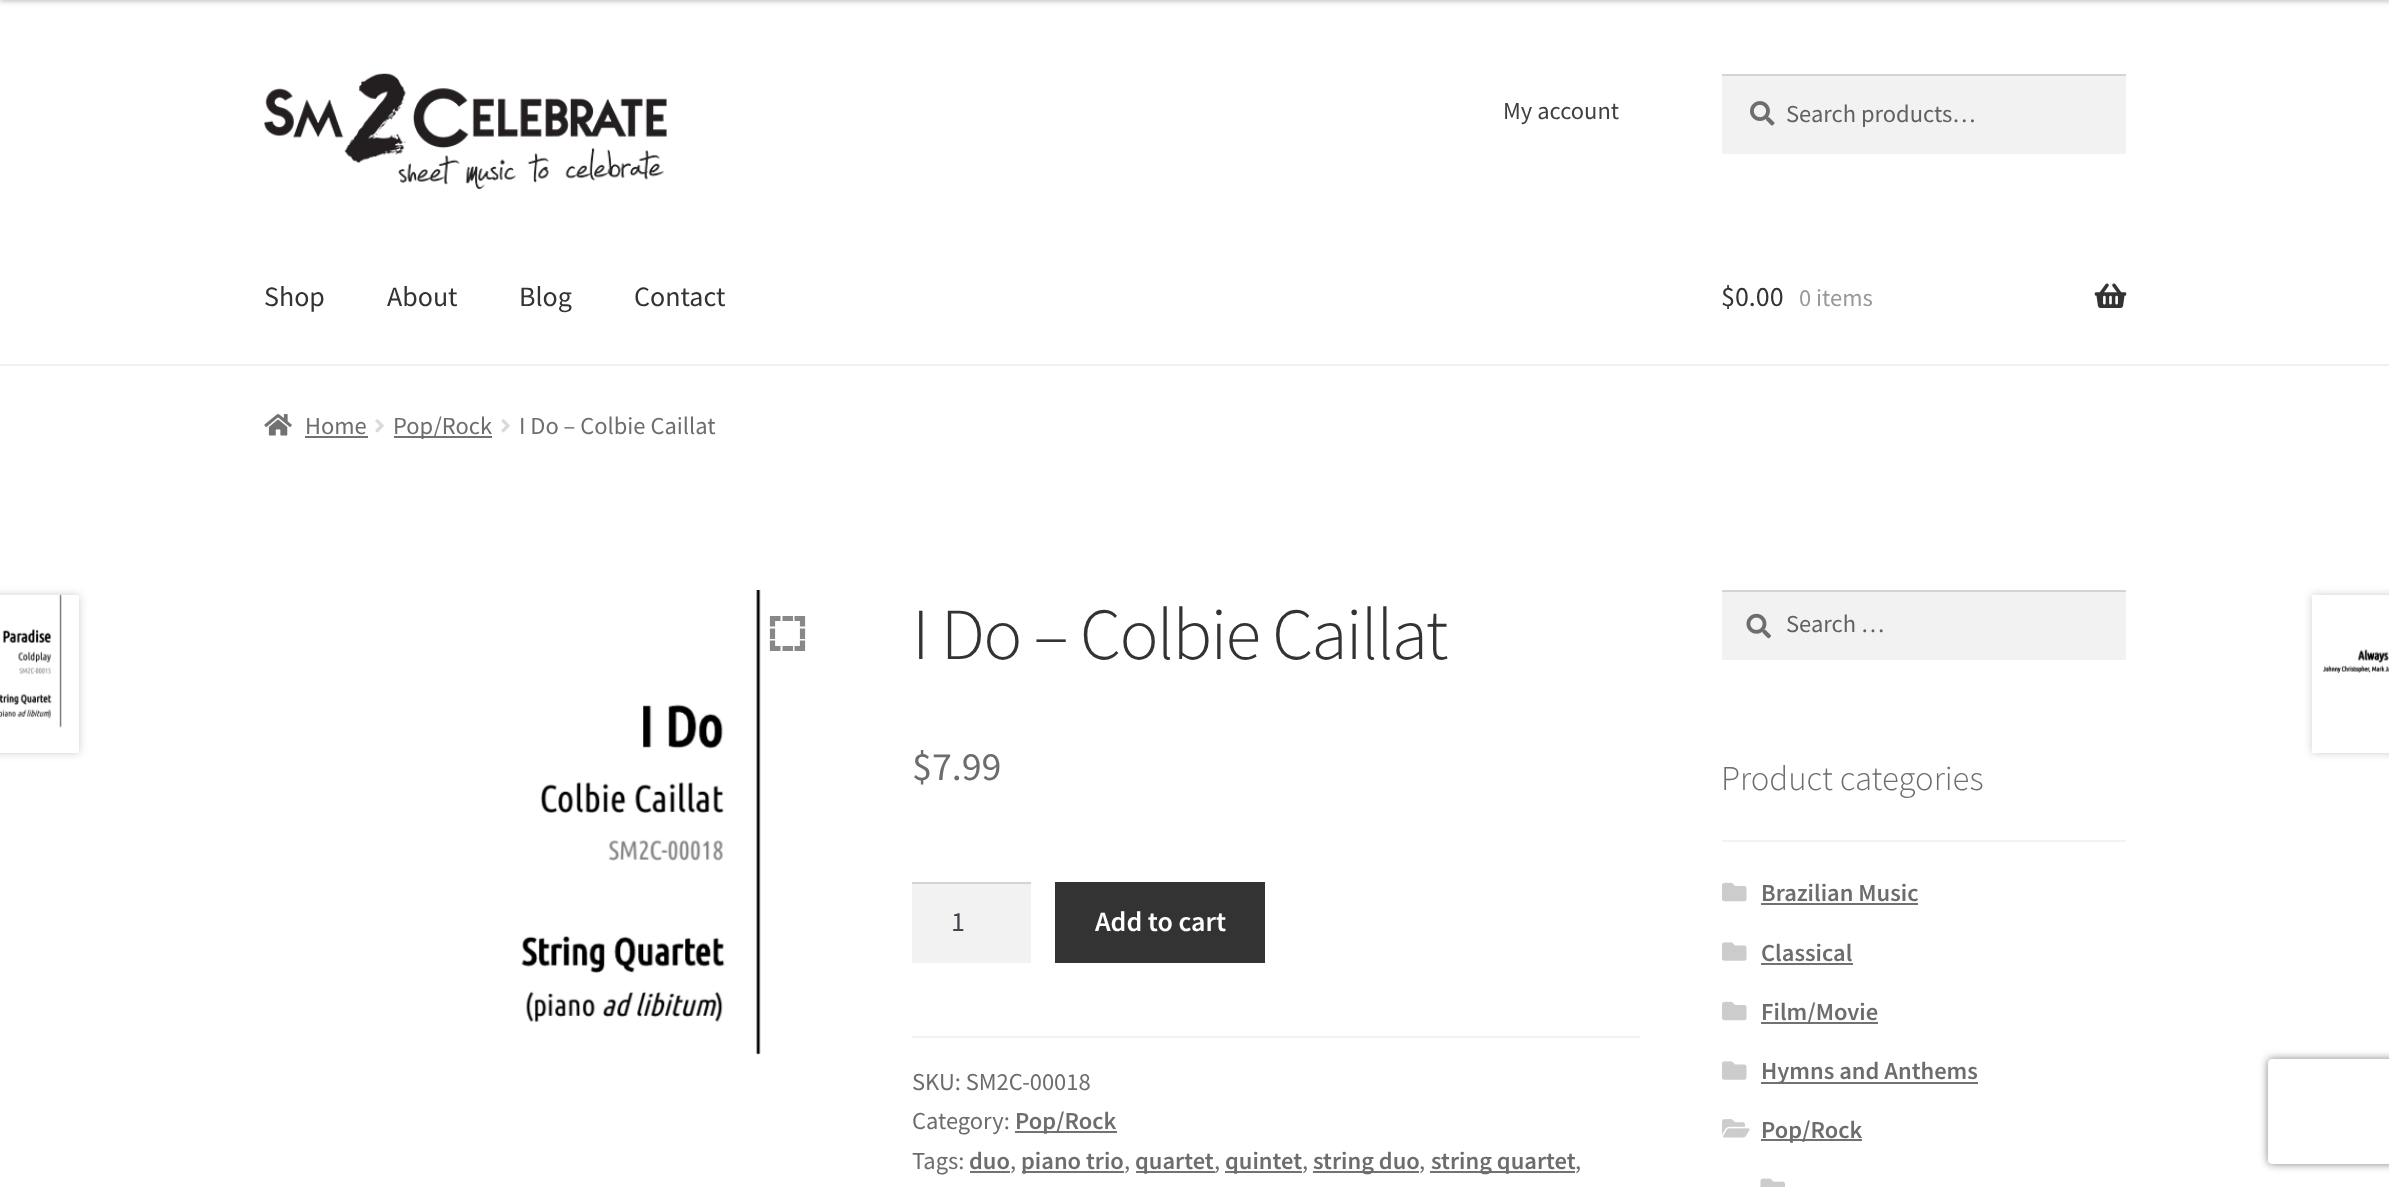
<svg xmlns="http://www.w3.org/2000/svg" width="2389" height="1187" viewBox="0 0 2389 1187">
  <defs>
    <clipPath id="clip1"><path d="M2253 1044H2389V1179H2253ZM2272 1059H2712C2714 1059 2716 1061 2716 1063V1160C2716 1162 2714 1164 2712 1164H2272C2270 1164 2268 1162 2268 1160V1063C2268 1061 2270 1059 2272 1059Z" clip-rule="evenodd"/></clipPath>
  </defs>
  <rect width="100%" height="100%" fill="rgb(255,255,255)"/>
  <rect x="0" y="-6" width="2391" height="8" fill="rgba(0,0,0,0.2)" filter="blur(2px)"/>
  <rect x="0" y="364" width="2389" height="2" fill="rgb(240,240,240)"/>
  <image x="264" y="73" width="403" height="116" href="pic1.png"/>
  <text x="1503" y="119" font-family="Source Sans Pro" font-size="24.5" fill="rgb(64,64,64)">My account</text>
  <rect x="1722" y="76" width="404" height="78" fill="rgb(242,242,242)"/>
  <image x="1750" y="101" width="25" height="25" href="pic2.png"/>
  <rect x="1722" y="74" width="404" height="2" fill="rgb(212,212,212)"/>
  <text x="1786" y="122" font-family="Source Sans Pro" font-size="24.5" fill="rgb(97,97,97)">Search products…</text>
  <g font-family="Source Sans Pro" font-size="28" fill="rgb(51,51,51)">
    <text x="264" y="306">Shop</text>
    <text x="387" y="306">About</text>
    <text x="519" y="306">Blog</text>
    <text x="634" y="306">Contact</text>
    <text x="1721" y="306">$0.00</text>
  </g>
  <text x="1799" y="306" font-family="Source Sans Pro" font-size="24.5" fill="rgb(153,153,153)">0 items</text>
  <image x="2094" y="283" width="33" height="25" href="pic3.png"/>
  <image x="264" y="414" width="28" height="22" href="pic4.png"/>
  <text x="305" y="434" font-family="Source Sans Pro" font-size="24.5" fill="rgb(109,109,109)">Home</text>
  <rect x="305" y="436" width="63" height="2" fill="rgb(114,114,114)"/>
  <image x="375" y="419" width="9" height="14" href="pic5.png"/>
  <rect x="394" y="436" width="98" height="2" fill="rgb(114,114,114)"/>
  <text x="393" y="434" font-family="Source Sans Pro" font-size="24.5" fill="rgb(109,109,109)">Pop/Rock</text>
  <image x="501" y="419" width="9" height="14" href="pic5.png"/>
  <text x="519" y="434" font-family="Source Sans Pro" font-size="24.5" fill="rgb(109,109,109)">I Do – Colbie Caillat</text>
  <rect x="-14" y="595" width="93" height="158" fill="rgba(0,0,0,0.2)" filter="blur(4.5px)"/>
  <rect x="0" y="595" width="79" height="158" fill="rgb(255,255,255)"/>
  <image x="0" y="594" width="62" height="134" href="pic6.png"/>
  <rect x="2312" y="595" width="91" height="158" fill="rgba(0,0,0,0.2)" filter="blur(4.5px)"/>
  <rect x="2312" y="595" width="77" height="158" fill="rgb(255,255,255)"/>
  <image x="2322" y="648" width="67" height="25" href="pic7.png"/>
  <image x="521" y="590" width="240" height="465" href="pic8.png"/>
  <path d="M770 618.5H780.5M782.5 618.5H793M794.5 618.5H805M802.5 616V626.5M802.5 628.5V639M802.5 640.5V651M770 648.5H780.5M782.5 648.5H793M794.5 648.5H805M772.5 616V626.5M772.5 628.5V639M772.5 640.5V651" fill="none" stroke="rgb(136,136,136)" stroke-width="5.2"/>
  <text x="912" y="659" font-family="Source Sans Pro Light" font-size="73.25" font-weight="300" letter-spacing="-1.75" fill="rgb(51,51,51)">I Do – Colbie Caillat</text>
  <text x="912" y="780" font-family="Source Sans Pro" font-size="40" fill="rgb(109,109,109)">$7.99</text>
  <rect x="912" y="884" width="119" height="79" fill="rgb(242,242,242)"/>
  <rect x="912" y="882" width="119" height="2" fill="rgb(212,212,212)"/>
  <text x="951" y="931" font-family="Source Sans Pro" font-size="28" fill="rgb(67,69,75)">1</text>
  <rect x="1055" y="882" width="210" height="81" fill="rgb(51,51,51)"/>
  <text x="1095" y="931" font-family="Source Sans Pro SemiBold" font-size="28" font-weight="600" fill="rgb(255,255,255)">Add to cart</text>
  <rect x="912" y="1036" width="728" height="2" fill="rgb(242,242,242)"/>
  <g font-family="Source Sans Pro" font-size="24.5" fill="rgb(109,109,109)">
    <text>
      <tspan x="912" y="1090">SKU: SM2C-00018</tspan>
      <tspan x="912" y="1129">Category:</tspan>
    </text>
  </g>
  <rect x="1015" y="1131" width="102" height="2" fill="rgb(114,114,114)"/>
  <text x="1015" y="1129" font-family="Source Sans Pro SemiBold" font-size="24.5" font-weight="600" fill="rgb(109,109,109)">Pop/Rock</text>
  <text x="912" y="1169" font-family="Source Sans Pro" font-size="24.5" fill="rgb(109,109,109)">Tags:</text>
  <text x="969" y="1169" font-family="Source Sans Pro SemiBold" font-size="24.5" font-weight="600" fill="rgb(109,109,109)">duo</text>
  <rect x="970" y="1171" width="40" height="2" fill="rgb(114,114,114)"/>
  <text x="1010" y="1169" font-family="Source Sans Pro" font-size="24.5" fill="rgb(109,109,109)">,</text>
  <rect x="1022" y="1171" width="102" height="2" fill="rgb(114,114,114)"/>
  <text x="1021" y="1169" font-family="Source Sans Pro SemiBold" font-size="24.5" font-weight="600" fill="rgb(109,109,109)">piano trio</text>
  <text x="1124" y="1169" font-family="Source Sans Pro" font-size="24.5" fill="rgb(109,109,109)">,</text>
  <rect x="1136" y="1171" width="79" height="2" fill="rgb(114,114,114)"/>
  <text x="1135" y="1169" font-family="Source Sans Pro SemiBold" font-size="24.5" font-weight="600" fill="rgb(109,109,109)">quartet</text>
  <text x="1214" y="1169" font-family="Source Sans Pro" font-size="24.5" fill="rgb(109,109,109)">,</text>
  <rect x="1225" y="1171" width="77" height="2" fill="rgb(114,114,114)"/>
  <text x="1225" y="1169" font-family="Source Sans Pro SemiBold" font-size="24.5" font-weight="600" fill="rgb(109,109,109)">quintet</text>
  <text x="1302" y="1169" font-family="Source Sans Pro" font-size="24.5" fill="rgb(109,109,109)">,</text>
  <rect x="1313" y="1171" width="106" height="2" fill="rgb(114,114,114)"/>
  <text x="1313" y="1169" font-family="Source Sans Pro SemiBold" font-size="24.5" font-weight="600" fill="rgb(109,109,109)">string duo</text>
  <text x="1419" y="1169" font-family="Source Sans Pro" font-size="24.5" fill="rgb(109,109,109)">,</text>
  <rect x="1430" y="1171" width="145" height="2" fill="rgb(114,114,114)"/>
  <text x="1431" y="1169" font-family="Source Sans Pro SemiBold" font-size="24.5" font-weight="600" fill="rgb(109,109,109)">string quartet</text>
  <text x="1575" y="1169" font-family="Source Sans Pro" font-size="24.5" fill="rgb(109,109,109)">,</text>
  <rect x="1722" y="592" width="404" height="68" fill="rgb(242,242,242)"/>
  <image x="1746" y="613" width="25" height="26" href="pic9.png"/>
  <rect x="1722" y="590" width="404" height="2" fill="rgb(212,212,212)"/>
  <text x="1786" y="632" font-family="Source Sans Pro" font-size="24.5" fill="rgb(97,97,97)">Search …</text>
  <rect x="1722" y="840" width="404" height="2" fill="rgb(242,242,242)"/>
  <text x="1721" y="790" font-family="Source Sans Pro Light" font-size="34.75" font-weight="300" fill="rgb(109,109,109)">Product categories</text>
  <image x="1722" y="882" width="25" height="20" href="pic10.png"/>
  <text x="1761" y="901" font-family="Source Sans Pro SemiBold" font-size="24.5" font-weight="600" fill="rgb(109,109,109)">Brazilian Music</text>
  <rect x="1761" y="903" width="157" height="2" fill="rgb(114,114,114)"/>
  <image x="1722" y="942" width="25" height="19" href="pic11.png"/>
  <text x="1761" y="961" font-family="Source Sans Pro SemiBold" font-size="24.5" font-weight="600" fill="rgb(109,109,109)">Classical</text>
  <rect x="1761" y="963" width="92" height="2" fill="rgb(114,114,114)"/>
  <image x="1722" y="1001" width="25" height="20" href="pic10.png"/>
  <rect x="1761" y="1022" width="117" height="2" fill="rgb(114,114,114)"/>
  <text x="1761" y="1020" font-family="Source Sans Pro SemiBold" font-size="24.5" font-weight="600" fill="rgb(109,109,109)">Film/Movie</text>
  <image x="1722" y="1061" width="25" height="19" href="pic11.png"/>
  <rect x="1761" y="1082" width="217" height="2" fill="rgb(114,114,114)"/>
  <text x="1761" y="1079" font-family="Source Sans Pro SemiBold" font-size="24.5" font-weight="600" fill="rgb(109,109,109)">Hymns and Anthems</text>
  <image x="1722" y="1119" width="28" height="19" href="pic12.png"/>
  <rect x="1761" y="1139" width="101" height="2" fill="rgb(114,114,114)"/>
  <text x="1761" y="1138" font-family="Source Sans Pro SemiBold" font-size="24.5" font-weight="600" fill="rgb(109,109,109)">Pop/Rock</text>
  <image x="1760" y="1178" width="25" height="9" href="pic13.png"/>
  <g clip-path="url(#clip1)">
    <rect x="2268" y="1059" width="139" height="105" rx="4" fill="rgb(128,128,128)" filter="blur(4.5px)"/>
  </g>
</svg>
